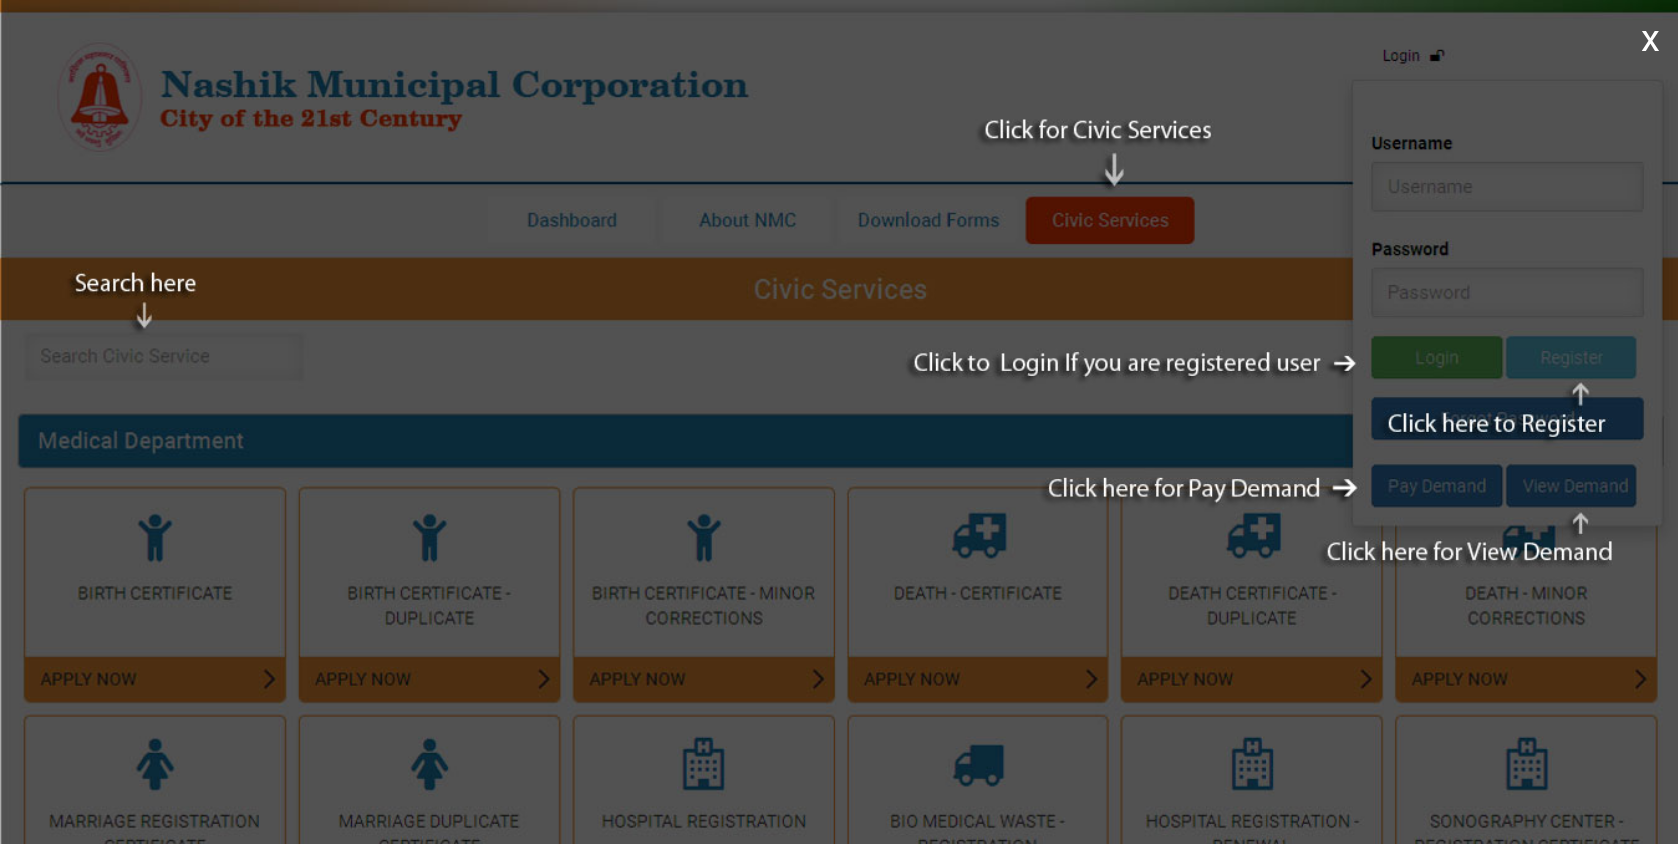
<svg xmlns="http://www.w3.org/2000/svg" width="1678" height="844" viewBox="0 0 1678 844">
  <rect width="100%" height="100%" fill="rgb(255,255,255)"/>
  <image x="0" y="0" width="1678" height="844" href="pic1.png"/>
  <text x="1641" y="51" font-family="Roboto" font-size="38" fill="rgb(255,255,255)">x</text>
</svg>
